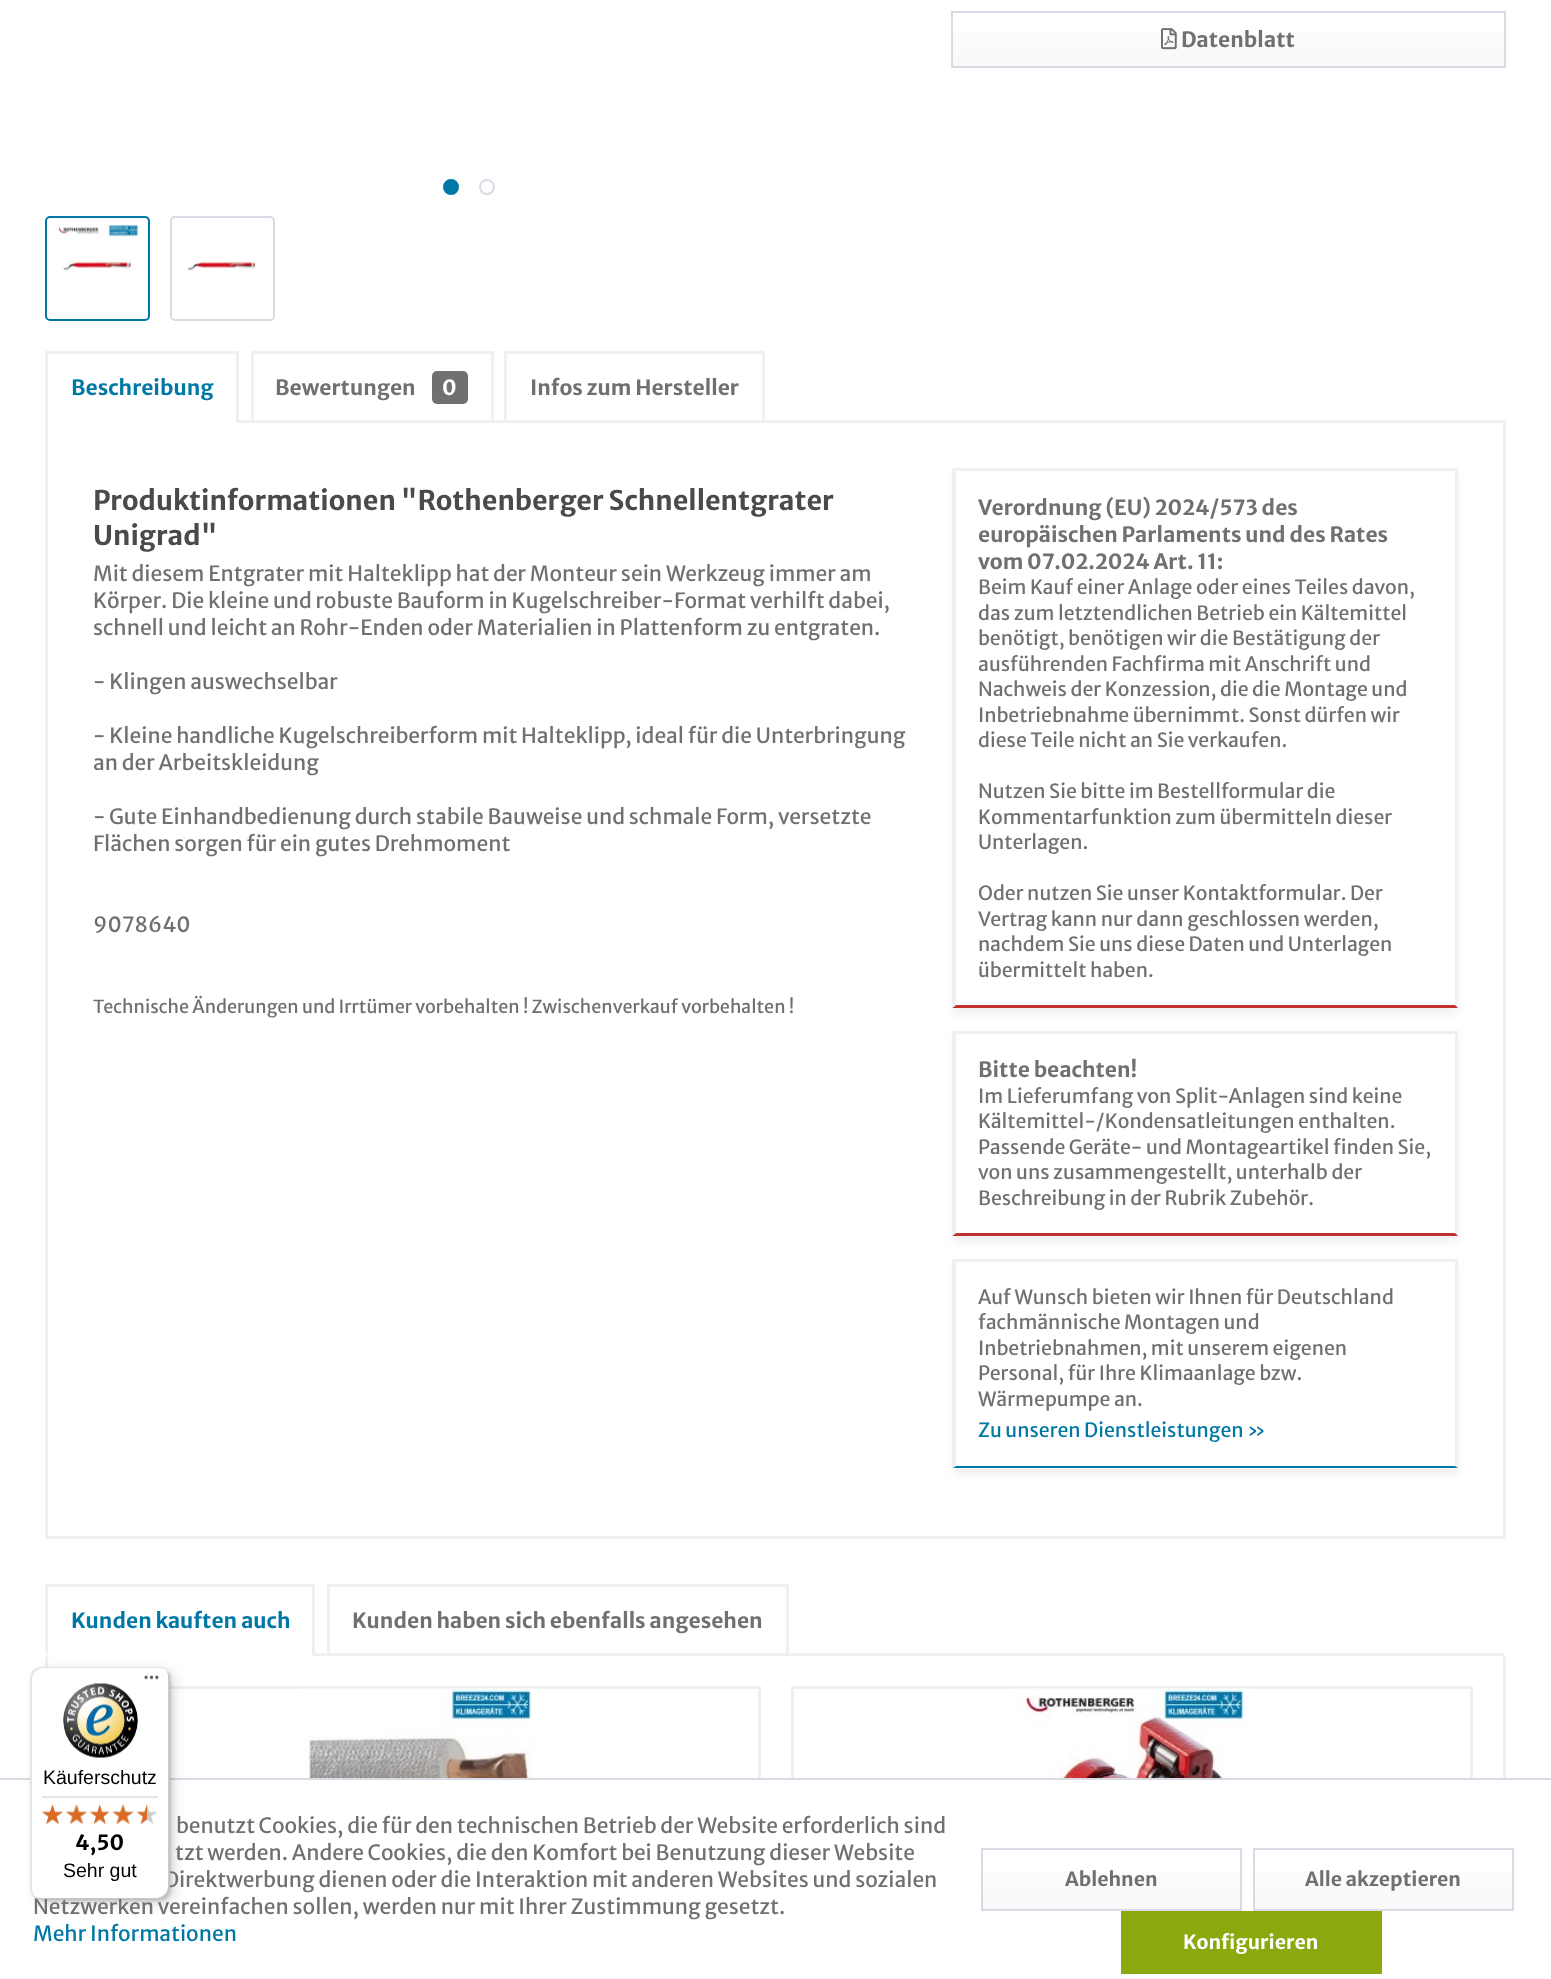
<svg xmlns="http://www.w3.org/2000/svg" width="1551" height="1979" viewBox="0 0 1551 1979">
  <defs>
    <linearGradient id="g1" gradientUnits="userSpaceOnUse" x1="1229" y1="12" x2="1229" y2="66"><stop offset="0" stop-color="rgb(255,255,255)"/><stop offset="1" stop-color="rgb(248,248,250)"/></linearGradient>
    <clipPath id="clip1"><path d="M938 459H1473V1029H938ZM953 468H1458V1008H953Z" clip-rule="evenodd"/></clipPath>
    <clipPath id="clip2"><path d="M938 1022H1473V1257H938ZM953 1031H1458V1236H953Z" clip-rule="evenodd"/></clipPath>
    <clipPath id="clip3"><path d="M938 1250H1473V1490H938ZM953 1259H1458V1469H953Z" clip-rule="evenodd"/></clipPath>
    <linearGradient id="g2" gradientUnits="userSpaceOnUse" x1="1112" y1="1850" x2="1112" y2="1910"><stop offset="0" stop-color="rgb(255,255,255)"/><stop offset="1" stop-color="rgb(248,248,250)"/></linearGradient>
    <linearGradient id="g3" gradientUnits="userSpaceOnUse" x1="1383" y1="1850" x2="1383" y2="1910"><stop offset="0" stop-color="rgb(255,255,255)"/><stop offset="1" stop-color="rgb(248,248,250)"/></linearGradient>
  </defs>
  <rect width="100%" height="100%" fill="rgb(255,255,255)"/>
  <rect x="953" y="31" width="551" height="35" fill="url(#g1)"/>
  <rect x="952" y="12" width="553" height="55" fill="none" stroke="rgb(218,218,229)" stroke-width="2"/>
  <image x="1161" y="28" width="16" height="22" href="pic1.png"/>
  <text x="1181" y="47" font-family="Merriweather Sans" font-size="21" font-weight="bold" fill="rgb(112,112,112)">Datenblatt</text>
  <circle cx="451" cy="187" r="7" fill="rgb(0,120,165)" stroke="rgb(0,120,165)" stroke-width="2"/>
  <circle cx="487" cy="187" r="7" fill="none" stroke="rgb(218,218,229)" stroke-width="2"/>
  <rect x="46" y="217" width="103" height="103" rx="4" fill="none" stroke="rgb(0,120,165)" stroke-width="2"/>
  <image x="55" y="224" width="83" height="47" href="pic2.png"/>
  <rect x="171" y="217" width="103" height="103" rx="4" fill="none" stroke="rgb(218,218,229)" stroke-width="2"/>
  <image x="188" y="261" width="68" height="10" href="pic3.png"/>
  <rect x="45" y="351" width="194" height="3" fill="rgb(240,240,240)"/>
  <rect x="236" y="351" width="3" height="69" fill="rgb(240,240,240)"/>
  <rect x="45" y="351" width="3" height="69" fill="rgb(240,240,240)"/>
  <text x="71" y="395" font-family="Merriweather Sans" font-size="21" font-weight="bold" fill="rgb(0,120,165)">Beschreibung</text>
  <rect x="46.5" y="421.5" width="1458" height="1116" fill="none" stroke="rgb(240,240,240)" stroke-width="3"/>
  <rect x="48" y="420" width="188" height="3" fill="rgb(255,255,255)"/>
  <rect x="251" y="351" width="243" height="3" fill="rgb(240,240,240)"/>
  <rect x="491" y="351" width="3" height="69" fill="rgb(240,240,240)"/>
  <rect x="251" y="351" width="3" height="69" fill="rgb(240,240,240)"/>
  <text x="275" y="395" font-family="Merriweather Sans" font-size="21" font-weight="bold" fill="rgb(112,112,112)">Bewertungen</text>
  <rect x="432" y="371" width="36" height="33" rx="5" fill="rgb(112,112,112)"/>
  <text x="442" y="395" font-family="Merriweather Sans" font-size="21" font-weight="bold" fill="rgb(255,255,255)">0</text>
  <rect x="504" y="351" width="261" height="3" fill="rgb(240,240,240)"/>
  <rect x="762" y="351" width="3" height="69" fill="rgb(240,240,240)"/>
  <rect x="504" y="351" width="3" height="69" fill="rgb(240,240,240)"/>
  <text x="530" y="395" font-family="Merriweather Sans" font-size="21" font-weight="bold" fill="rgb(112,112,112)">Infos zum Hersteller</text>
  <g font-family="Merriweather Sans" font-size="27" font-weight="bold" fill="rgb(74,74,74)">
    <text>
      <tspan x="93" y="510">Produktinformationen "Rothenberger Schnellentgrater</tspan>
      <tspan x="93" y="545">Unigrad"</tspan>
    </text>
  </g>
  <g clip-path="url(#clip1)">
    <rect x="953" y="474" width="505" height="540" fill="rgb(240,240,240)" filter="blur(4.5px)"/>
  </g>
  <rect x="953" y="468" width="505" height="3" fill="rgb(240,240,240)"/>
  <path d="M1458 468V1008L1455 1005V471Z" fill="rgb(240,240,240)"/>
  <path d="M1458 1008H952L956 1005H1455Z" fill="rgb(191,49,45)"/>
  <path d="M952 1008V468L956 471V1005Z" fill="rgb(240,240,240)"/>
  <g font-family="Merriweather Sans" font-size="21" font-weight="bold" fill="rgb(112,112,112)">
    <text>
      <tspan x="978" y="515">Verordnung (EU) 2024/573 des</tspan>
      <tspan x="978" y="542">europäischen Parlaments und des Rates</tspan>
      <tspan x="978" y="569">vom 07.02.2024 Art. 11:</tspan>
    </text>
  </g>
  <g font-family="Merriweather Sans" font-size="19.5" fill="rgb(112,112,112)">
    <text>
      <tspan x="978" y="594">Beim Kauf einer Anlage oder eines Teiles davon,</tspan>
      <tspan x="978" y="620">das zum letztendlichen Betrieb ein Kältemittel</tspan>
      <tspan x="978" y="645">benötigt, benötigen wir die Bestätigung der</tspan>
      <tspan x="978" y="671">ausführenden Fachfirma mit Anschrift und</tspan>
      <tspan x="978" y="696">Nachweis der Konzession, die die Montage und</tspan>
      <tspan x="978" y="722">Inbetriebnahme übernimmt. Sonst dürfen wir</tspan>
      <tspan x="978" y="747">diese Teile nicht an Sie verkaufen.</tspan>
    </text>
    <text>
      <tspan x="978" y="798">Nutzen Sie bitte im Bestellformular die</tspan>
      <tspan x="978" y="824">Kommentarfunktion zum übermitteln dieser</tspan>
      <tspan x="978" y="849">Unterlagen.</tspan>
    </text>
    <text>
      <tspan x="978" y="900">Oder nutzen Sie unser Kontaktformular. Der</tspan>
      <tspan x="978" y="926">Vertrag kann nur dann geschlossen werden,</tspan>
      <tspan x="978" y="951">nachdem Sie uns diese Daten und Unterlagen</tspan>
      <tspan x="978" y="977">übermittelt haben.</tspan>
    </text>
  </g>
  <g clip-path="url(#clip2)">
    <rect x="953" y="1037" width="505" height="205" fill="rgb(240,240,240)" filter="blur(4.5px)"/>
  </g>
  <rect x="953" y="1031" width="505" height="3" fill="rgb(240,240,240)"/>
  <path d="M1458 1030V1236L1455 1233V1034Z" fill="rgb(240,240,240)"/>
  <path d="M1458 1236H952L956 1233H1455Z" fill="rgb(191,49,45)"/>
  <path d="M952 1236V1030L956 1034V1233Z" fill="rgb(240,240,240)"/>
  <text x="978" y="1077" font-family="Merriweather Sans" font-size="21" font-weight="bold" fill="rgb(112,112,112)">Bitte beachten!</text>
  <g font-family="Merriweather Sans" font-size="19.5" fill="rgb(112,112,112)">
    <text>
      <tspan x="978" y="1103">Im Lieferumfang von Split-Anlagen sind keine</tspan>
      <tspan x="978" y="1128">Kältemittel-/Kondensatleitungen enthalten.</tspan>
      <tspan x="978" y="1154">Passende Geräte- und Montageartikel finden Sie,</tspan>
      <tspan x="978" y="1179">von uns zusammengestellt, unterhalb der</tspan>
      <tspan x="978" y="1205">Beschreibung in der Rubrik Zubehör.</tspan>
    </text>
  </g>
  <g clip-path="url(#clip3)">
    <rect x="953" y="1265" width="505" height="210" fill="rgb(240,240,240)" filter="blur(4.5px)"/>
  </g>
  <rect x="953" y="1259" width="505" height="3" fill="rgb(240,240,240)"/>
  <path d="M1458 1258V1468L1455 1466V1262Z" fill="rgb(240,240,240)"/>
  <path d="M1458 1468H952L956 1466H1455Z" fill="rgb(0,120,165)"/>
  <path d="M952 1468V1258L956 1262V1466Z" fill="rgb(240,240,240)"/>
  <g font-family="Merriweather Sans" font-size="19.5" fill="rgb(112,112,112)">
    <text>
      <tspan x="978" y="1304">Auf Wunsch bieten wir Ihnen für Deutschland</tspan>
      <tspan x="978" y="1329">fachmännische Montagen und</tspan>
      <tspan x="978" y="1355">Inbetriebnahmen, mit unserem eigenen</tspan>
      <tspan x="978" y="1380">Personal, für Ihre Klimaanlage bzw.</tspan>
      <tspan x="978" y="1406">Wärmepumpe an.</tspan>
    </text>
  </g>
  <text x="978" y="1437" font-family="Merriweather Sans" font-size="19.5" fill="rgb(0,120,165)">Zu unseren Dienstleistungen »</text>
  <g font-family="Merriweather Sans" font-size="21" fill="rgb(112,112,112)">
    <text>
      <tspan x="93" y="581">Mit diesem Entgrater mit Halteklipp hat der Monteur sein Werkzeug immer am</tspan>
      <tspan x="93" y="608">Körper. Die kleine und robuste Bauform in Kugelschreiber-Format verhilft dabei,</tspan>
      <tspan x="93" y="635">schnell und leicht an Rohr-Enden oder Materialien in Plattenform zu entgraten.</tspan>
    </text>
    <text x="93" y="689">- Klingen auswechselbar</text>
    <text>
      <tspan x="93" y="743">- Kleine handliche Kugelschreiberform mit Halteklipp, ideal für die Unterbringung</tspan>
      <tspan x="93" y="770">an der Arbeitskleidung</tspan>
    </text>
    <text>
      <tspan x="93" y="824">- Gute Einhandbedienung durch stabile Bauweise und schmale Form, versetzte</tspan>
      <tspan x="93" y="851">Flächen sorgen für ein gutes Drehmoment</tspan>
    </text>
    <text x="93" y="932">9078640</text>
  </g>
  <text x="93" y="1013" font-family="Merriweather Sans" font-size="18" fill="rgb(112,112,112)">Technische Änderungen und Irrtümer vorbehalten ! Zwischenverkauf vorbehalten !</text>
  <rect x="45" y="1584" width="270" height="3" fill="rgb(240,240,240)"/>
  <rect x="312" y="1584" width="3" height="69" fill="rgb(240,240,240)"/>
  <rect x="45" y="1584" width="3" height="69" fill="rgb(240,240,240)"/>
  <text x="71" y="1628" font-family="Merriweather Sans" font-size="21" font-weight="bold" fill="rgb(0,120,165)">Kunden kauften auch</text>
  <rect x="46.5" y="1654.5" width="1458" height="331" rx="3.5" fill="none" stroke="rgb(240,240,240)" stroke-width="3"/>
  <rect x="48" y="1653" width="264" height="3" fill="rgb(255,255,255)"/>
  <rect x="327" y="1584" width="462" height="3" fill="rgb(240,240,240)"/>
  <rect x="786" y="1584" width="3" height="69" fill="rgb(240,240,240)"/>
  <rect x="327" y="1584" width="3" height="69" fill="rgb(240,240,240)"/>
  <text x="352" y="1628" font-family="Merriweather Sans" font-size="21" font-weight="bold" fill="rgb(112,112,112)">Kunden haben sich ebenfalls angesehen</text>
  <rect x="79.5" y="1687.5" width="680" height="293" fill="none" stroke="rgb(240,240,240)" stroke-width="3"/>
  <image x="300" y="1688" width="240" height="90" href="pic4.png"/>
  <rect x="792.5" y="1687.5" width="679" height="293" fill="none" stroke="rgb(240,240,240)" stroke-width="3"/>
  <image x="1013" y="1688" width="239" height="90" href="pic5.png"/>
  <rect x="45" y="1780" width="1461" height="199" fill="rgb(255,255,255)"/>
  <rect x="0" y="1778" width="1551" height="2" fill="rgb(218,218,229)"/>
  <rect x="35" y="1671" width="139" height="233" rx="12" fill="rgba(0,0,0,0.15)" filter="blur(6px)"/>
  <rect x="32" y="1668" width="139" height="233" rx="12" fill="rgba(0,0,0,0.15)" filter="blur(1.5px)"/>
  <g font-family="Merriweather Sans" font-size="21" fill="rgb(112,112,112)">
    <text x="164" y="1887">Direktwerbung dienen oder die Interaktion mit anderen Websites und sozialen</text>
    <text x="33" y="1914">Netzwerken vereinfachen sollen, werden nur mit Ihrer Zustimmung gesetzt.</text>
  </g>
  <rect x="30" y="1667" width="140" height="232" rx="12" fill="rgb(255,255,255)"/>
  <path d="M44 1668H159C162 1668 164 1669 166 1670C164 1668 161 1667 158 1667H42C35 1667 30 1672 30 1679V1887C30 1892 33 1896 37 1898C34 1896 32 1892 32 1888V1680C32 1673 37 1668 44 1668Z" fill="rgba(0,0,0,0.1)"/>
  <path d="M35 1896C37 1898 39 1899 42 1899H158C165 1899 170 1894 170 1887V1679C170 1675 168 1672 166 1670C167 1672 168 1674 168 1677V1886C168 1892 163 1898 156 1898H40C38 1898 36 1897 35 1896Z" fill="rgba(0,0,0,0.2)"/>
  <path d="M34 1896C36 1898 39 1899 42 1899H158C165 1899 170 1894 170 1887V1679C170 1675 168 1672 166 1670C168 1672 169 1675 169 1678V1886C169 1893 163 1898 157 1898H41C38 1898 36 1897 34 1896Z" fill="rgba(50,50,50,0.2)"/>
  <path d="M33 1895C35 1897 38 1899 42 1899H158C165 1899 170 1894 170 1887V1679C170 1675 168 1672 166 1670C168 1672 169 1675 169 1678V1886C169 1893 163 1898 157 1898H41C38 1898 35 1897 33 1895Z" fill="rgba(255,255,255,0.3)"/>
  <image x="144" y="1675" width="15" height="5" href="pic6.png"/>
  <image x="63" y="1683" width="75" height="75" href="pic7.png"/>
  <text x="43" y="1784" font-family="Liberation Sans" font-size="19.5" fill="rgb(0,0,0)">Käuferschutz</text>
  <rect x="42" y="1796" width="116" height="2" fill="rgb(229,229,229)"/>
  <image x="42" y="1804" width="21" height="20" href="pic8.png"/>
  <image x="66" y="1805" width="21" height="19" href="pic9.png"/>
  <image x="90" y="1804" width="19" height="20" href="pic10.png"/>
  <image x="113" y="1805" width="20" height="19" href="pic11.png"/>
  <image x="137" y="1804" width="20" height="20" href="pic12.png"/>
  <image x="42" y="1804" width="21" height="20" href="pic13.png"/>
  <image x="66" y="1804" width="21" height="20" href="pic14.png"/>
  <image x="90" y="1804" width="19" height="20" href="pic15.png"/>
  <image x="112" y="1804" width="22" height="20" href="pic16.png"/>
  <image x="137" y="1804" width="10" height="20" href="pic17.png"/>
  <text x="75" y="1850" font-family="Merriweather Sans" font-size="21" font-weight="bold" fill="rgb(0,0,0)">4,50</text>
  <text x="63" y="1877" font-family="Liberation Sans" font-size="19.5" fill="rgb(0,0,0)">Sehr gut</text>
  <g font-family="Merriweather Sans" font-size="21" fill="rgb(112,112,112)">
    <text x="176" y="1833">benutzt Cookies, die für den technischen Betrieb der Website erforderlich sind</text>
    <text x="175" y="1860">tzt werden. Andere Cookies, die den Komfort bei Benutzung dieser Website</text>
  </g>
  <text x="33" y="1941" font-family="Merriweather Sans" font-size="21" fill="rgb(0,120,165)">Mehr Informationen</text>
  <rect x="983" y="1871" width="257" height="38" fill="url(#g2)"/>
  <rect x="982" y="1849" width="259" height="61" fill="none" stroke="rgb(218,218,229)" stroke-width="2"/>
  <text x="1065" y="1886" font-family="Merriweather Sans" font-size="19.5" font-weight="bold" fill="rgb(112,112,112)">Ablehnen</text>
  <rect x="1255" y="1871" width="257" height="38" fill="url(#g3)"/>
  <rect x="1254" y="1849" width="259" height="61" fill="none" stroke="rgb(218,218,229)" stroke-width="2"/>
  <text x="1305" y="1886" font-family="Merriweather Sans" font-size="19.5" font-weight="bold" fill="rgb(112,112,112)">Alle akzeptieren</text>
  <rect x="1121" y="1911" width="261" height="63" fill="rgb(139,168,14)"/>
  <text x="1183" y="1949" font-family="Merriweather Sans" font-size="19.5" font-weight="bold" fill="rgb(255,255,255)">Konfigurieren</text>
</svg>
